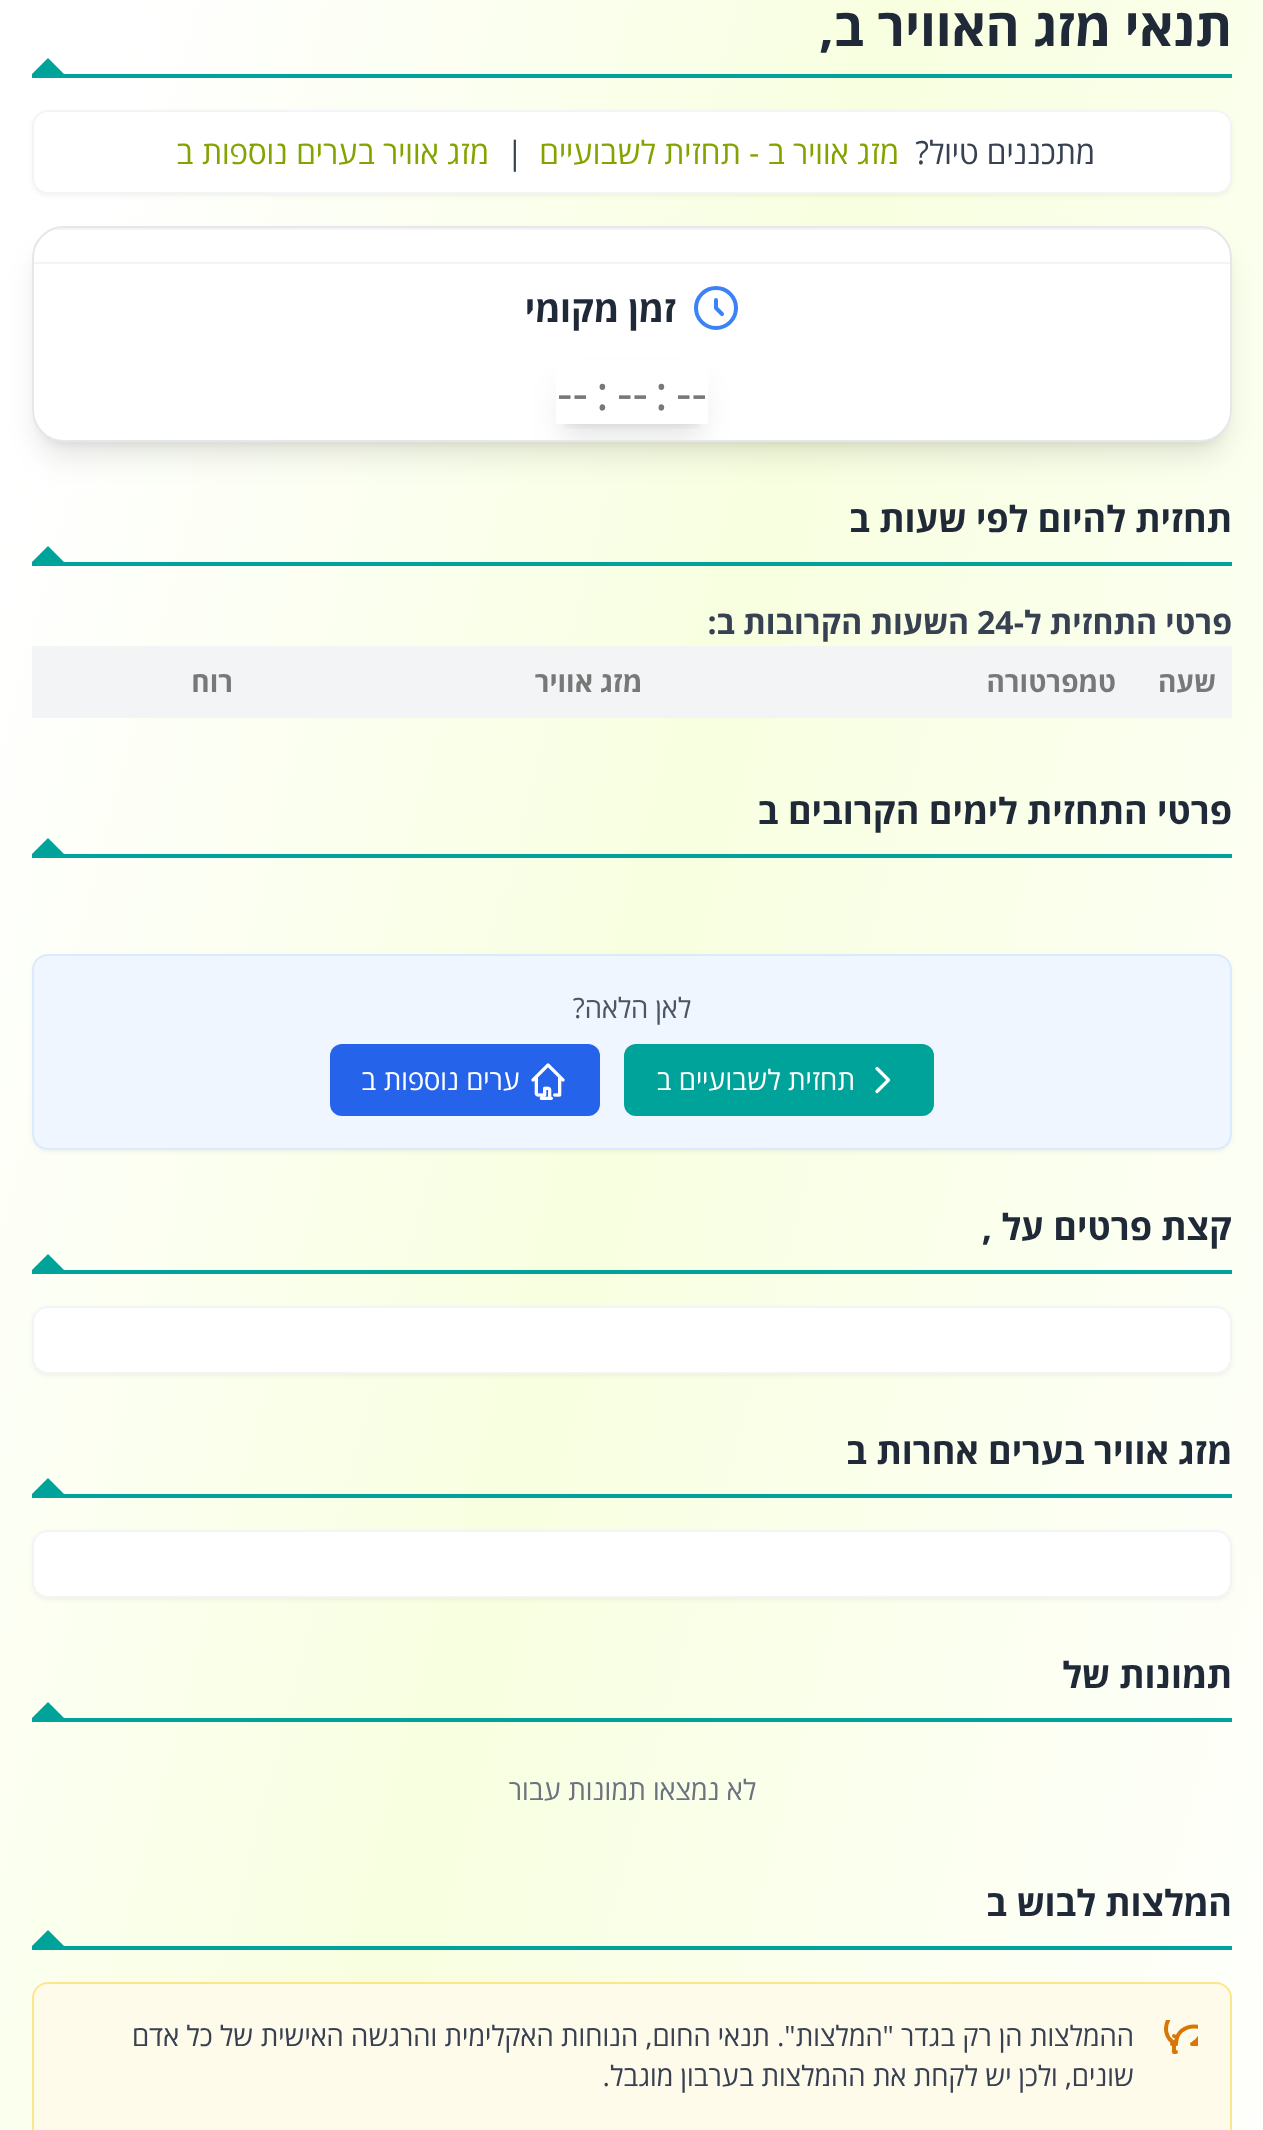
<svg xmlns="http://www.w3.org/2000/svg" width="1263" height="2130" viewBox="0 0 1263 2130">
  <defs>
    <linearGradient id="g1" gradientUnits="userSpaceOnUse" x1="-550" y1="1669" x2="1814" y2="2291"><stop offset="0.1" stop-color="rgb(255,255,255)"/><stop offset="0.4" stop-color="rgb(248,255,224)"/><stop offset="0.8" stop-color="rgb(255,255,255)"/></linearGradient>
    <clipPath id="clip1"><rect x="34" y="228" width="1196" height="212" rx="30"/></clipPath>
    <clipPath id="clip2"><rect x="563" y="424" width="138" height="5"/></clipPath>
    <clipPath id="clip3"><rect x="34" y="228" width="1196" height="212" rx="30"/></clipPath>
    <clipPath id="clip4"><path d="M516 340H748V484H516ZM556 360H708V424H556Z" clip-rule="evenodd"/></clipPath>
    <clipPath id="clip5"><rect x="1150" y="2020" width="48" height="48"/></clipPath>
  </defs>
  <rect width="100%" height="100%" fill="rgb(255,255,255)"/>
  <rect x="0" y="0" width="1263" height="2130" fill="url(#g1)"/>
  <rect x="32" y="74" width="1200" height="4" fill="rgb(0,163,153)"/>
  <text x="1232" y="46" font-family="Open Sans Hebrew" font-size="52" font-weight="bold" direction="rtl" fill="rgb(31,41,55)">תנאי מזג האוויר ב,</text>
  <path d="M64 74H32L48 58Z" fill="rgb(0,163,153)"/>
  <rect x="32" y="112" width="1200" height="84" rx="16" fill="rgba(0,0,0,0.05)" filter="blur(2px)"/>
  <rect x="33" y="111" width="1198" height="82" rx="15" fill="rgb(255,255,255)" stroke="rgb(243,244,246)" stroke-width="2"/>
  <text x="1095" y="164" font-family="Open Sans Hebrew" font-size="32" direction="rtl" fill="rgb(55,65,81)">מתכננים טיול?</text>
  <text x="899" y="164" font-family="Open Sans Hebrew" font-size="32" direction="rtl" fill="rgb(131,164,0)">מזג אוויר ב - תחזית לשבועיים</text>
  <text x="506" y="164" font-family="Open Sans Hebrew" font-size="32" fill="rgb(55,65,81)">|</text>
  <text x="489" y="164" font-family="Open Sans Hebrew" font-size="32" direction="rtl" fill="rgb(131,164,0)">מזג אוויר בערים נוספות ב</text>
  <rect x="40" y="242" width="1184" height="200" rx="24" fill="rgba(0,0,0,0.1)" filter="blur(6px)"/>
  <rect x="38" y="252" width="1188" height="204" rx="26" fill="rgba(0,0,0,0.1)" filter="blur(15px)"/>
  <rect x="33" y="227" width="1198" height="214" rx="31" fill="rgb(255,255,255)" stroke="rgb(229,231,235)" stroke-width="2"/>
  <g clip-path="url(#clip1)">
    <rect x="53" y="228" width="1158" height="2" fill="rgb(243,244,246)"/>
  </g>
  <rect x="34" y="262" width="1196" height="2" fill="rgb(243,244,246)"/>
  <path d="M716 300V308L722 314" fill="none" stroke="rgb(59,130,246)" stroke-width="4" stroke-linecap="round" stroke-linejoin="round"/>
  <circle cx="716" cy="308" r="20" fill="none" stroke="rgb(59,130,246)" stroke-width="4"/>
  <text x="676" y="322" font-family="Open Sans Hebrew" font-size="36" font-weight="bold" direction="rtl" fill="rgb(31,41,55)">זמן מקומי</text>
  <g clip-path="url(#clip2)">
    <rect x="564" y="376" width="136" height="48" fill="rgba(0,0,0,0.1)" filter="blur(6px)"/>
  </g>
  <g clip-path="url(#clip3)">
    <g clip-path="url(#clip4)">
      <rect x="562" y="386" width="140" height="52" fill="rgba(0,0,0,0.1)" filter="blur(15px)"/>
    </g>
  </g>
  <g font-family="Open Sans Hebrew" font-size="48" fill="rgb(120,120,120)">
    <text x="676" y="410">--</text>
    <text x="655" y="410">:</text>
    <text x="617" y="410">--</text>
    <text x="596" y="410">:</text>
    <text x="557" y="410">--</text>
  </g>
  <rect x="32" y="562" width="1200" height="4" fill="rgb(0,163,153)"/>
  <text x="1232" y="532" font-family="Open Sans Hebrew" font-size="36" font-weight="bold" direction="rtl" fill="rgb(31,41,55)">תחזית להיום לפי שעות ב</text>
  <path d="M64 562H32L48 546Z" fill="rgb(0,163,153)"/>
  <text x="1232" y="634" font-family="Open Sans Hebrew" font-size="32" font-weight="bold" direction="rtl" fill="rgb(55,65,81)">פרטי התחזית ל-</text>
  <text x="977" y="634" font-family="Open Sans Hebrew" font-size="32" font-weight="bold" fill="rgb(55,65,81)">24</text>
  <text x="969" y="634" font-family="Open Sans Hebrew" font-size="32" font-weight="bold" direction="rtl" fill="rgb(55,65,81)">השעות הקרובות ב:</text>
  <rect x="32" y="646" width="1200" height="72" fill="rgb(243,244,246)"/>
  <g font-family="Open Sans Hebrew" font-size="28" font-weight="bold" direction="rtl" fill="rgb(120,120,120)">
    <text x="1216" y="692">שעה</text>
    <text x="1116" y="692">טמפרטורה</text>
    <text x="642" y="692">מזג אוויר</text>
    <text x="233" y="692">רוח</text>
  </g>
  <rect x="32" y="854" width="1200" height="4" fill="rgb(0,163,153)"/>
  <text x="1232" y="824" font-family="Open Sans Hebrew" font-size="36" font-weight="bold" direction="rtl" fill="rgb(31,41,55)">פרטי התחזית לימים הקרובים ב</text>
  <path d="M64 854H32L48 838Z" fill="rgb(0,163,153)"/>
  <rect x="32" y="956" width="1200" height="196" rx="16" fill="rgba(0,0,0,0.05)" filter="blur(2px)"/>
  <rect x="33" y="955" width="1198" height="194" rx="15" fill="rgb(239,246,255)" stroke="rgb(219,234,254)" stroke-width="2"/>
  <text x="691" y="1018" font-family="Open Sans Hebrew" font-size="28" direction="rtl" fill="rgb(75,85,99)">לאן הלאה?</text>
  <rect x="624" y="1044" width="310" height="72" rx="12" fill="rgb(0,163,153)"/>
  <path d="M877 1068.5L888.5 1080L877 1091.5" fill="none" stroke="rgb(255,255,255)" stroke-width="3.3" stroke-linecap="round" stroke-linejoin="round"/>
  <text x="855" y="1090" font-family="Open Sans Hebrew" font-size="28" direction="rtl" fill="rgb(255,255,255)">תחזית לשבועיים ב</text>
  <rect x="330" y="1044" width="270" height="72" rx="12" fill="rgb(37,99,235)"/>
  <image x="531" y="1063" width="34" height="37" href="pic1.png"/>
  <text x="520" y="1090" font-family="Open Sans Hebrew" font-size="28" direction="rtl" fill="rgb(255,255,255)">ערים נוספות ב</text>
  <rect x="32" y="1270" width="1200" height="4" fill="rgb(0,163,153)"/>
  <text x="1232" y="1240" font-family="Open Sans Hebrew" font-size="36" font-weight="bold" direction="rtl" fill="rgb(31,41,55)">קצת פרטים על ,</text>
  <path d="M64 1270H32L48 1254Z" fill="rgb(0,163,153)"/>
  <rect x="32" y="1308" width="1200" height="68" rx="16" fill="rgba(0,0,0,0.05)" filter="blur(2px)"/>
  <rect x="33" y="1307" width="1198" height="66" rx="15" fill="rgb(255,255,255)" stroke="rgb(243,244,246)" stroke-width="2"/>
  <rect x="32" y="1494" width="1200" height="4" fill="rgb(0,163,153)"/>
  <text x="1232" y="1464" font-family="Open Sans Hebrew" font-size="36" font-weight="bold" direction="rtl" fill="rgb(31,41,55)">מזג אוויר בערים אחרות ב</text>
  <path d="M64 1494H32L48 1478Z" fill="rgb(0,163,153)"/>
  <rect x="32" y="1532" width="1200" height="68" rx="16" fill="rgba(0,0,0,0.05)" filter="blur(2px)"/>
  <rect x="33" y="1531" width="1198" height="66" rx="15" fill="rgb(255,255,255)" stroke="rgb(243,244,246)" stroke-width="2"/>
  <rect x="32" y="1718" width="1200" height="4" fill="rgb(0,163,153)"/>
  <text x="1232" y="1688" font-family="Open Sans Hebrew" font-size="36" font-weight="bold" direction="rtl" fill="rgb(31,41,55)">תמונות של</text>
  <path d="M64 1718H32L48 1702Z" fill="rgb(0,163,153)"/>
  <text x="756" y="1800" font-family="Open Sans Hebrew" font-size="28" direction="rtl" fill="rgb(107,114,128)">לא נמצאו תמונות עבור</text>
  <rect x="32" y="1946" width="1200" height="4" fill="rgb(0,163,153)"/>
  <text x="1232" y="1916" font-family="Open Sans Hebrew" font-size="36" font-weight="bold" direction="rtl" fill="rgb(31,41,55)">המלצות לבוש ב</text>
  <path d="M64 1946H32L48 1930Z" fill="rgb(0,163,153)"/>
  <rect x="33" y="1983" width="1198" height="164" rx="15" fill="rgb(255,251,235)" stroke="rgb(253,230,138)" stroke-width="2"/>
  <g clip-path="url(#clip5)">
    <path d="M1176 2052H1174V2044H1172M1174 2036H1174M1192 2044C1199.5 2040.5 1203.5 2032 1201.5 2024C1200.5 2019 1197 2014.5 1192.5 2012C1171.5 2000.5 1154.5 2033.5 1176 2044C1176 2020.5 1212 2020.5 1212 2044Z" fill="none" stroke="rgb(217,119,6)" stroke-width="4" stroke-linecap="round" stroke-linejoin="round"/>
  </g>
  <g font-family="Open Sans Hebrew" font-size="28" direction="rtl" fill="rgb(55,65,81)">
    <text>
      <tspan x="1134" y="2046">ההמלצות הן רק בגדר "המלצות". תנאי החום, הנוחות האקלימית והרגשה האישית של כל אדם</tspan>
      <tspan x="1134" y="2086">שונים, ולכן יש לקחת את ההמלצות בערבון מוגבל.</tspan>
    </text>
  </g>
</svg>
